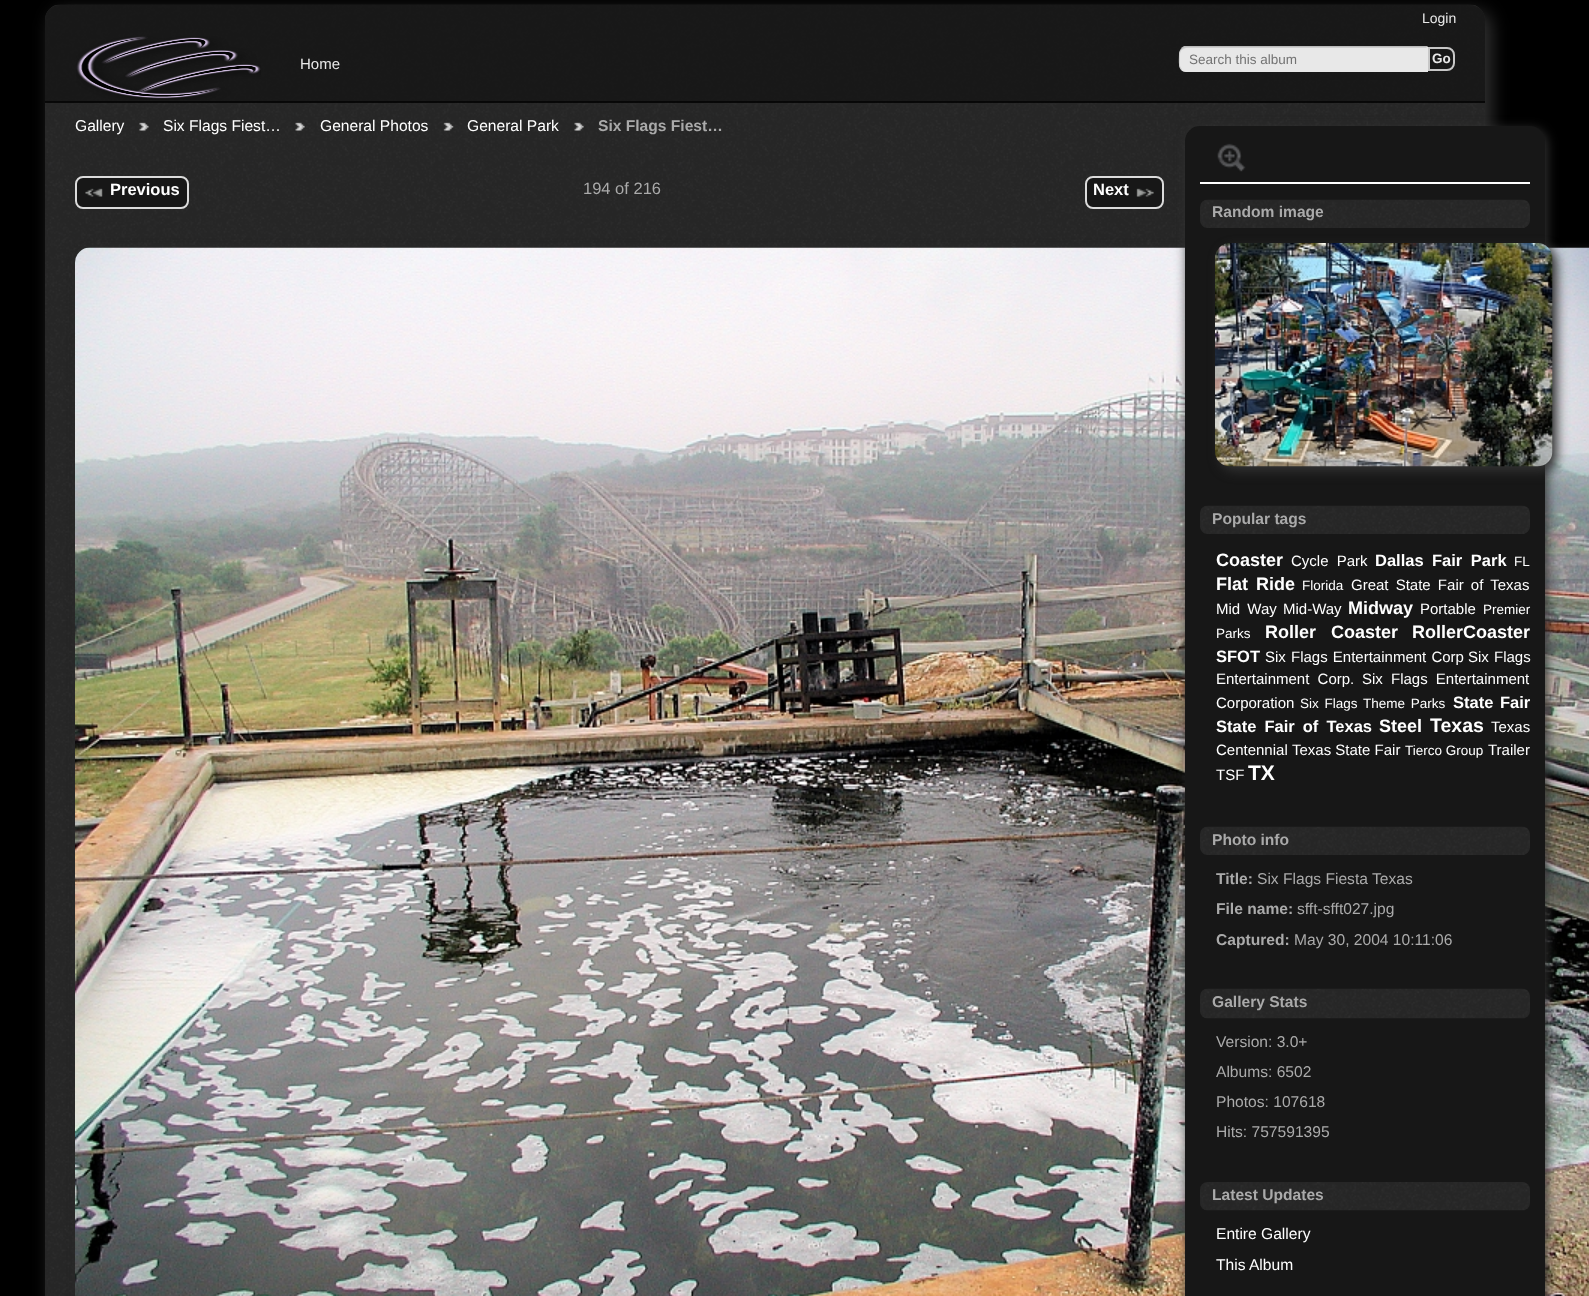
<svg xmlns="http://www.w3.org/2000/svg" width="1589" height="1296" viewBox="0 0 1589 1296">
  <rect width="100%" height="100%" fill="rgb(0,0,0)"/>
  <rect x="51" y="11" width="1440" height="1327" rx="15" fill="rgb(51,51,51)" filter="blur(9px)"/>
  <image x="45" y="4" width="1440" height="1292" href="pic1.png"/>
  <path d="M60 5H1470C1478.5 5 1485 11.5 1485 20V102H45V20C45 11.5 51.5 5 60 5Z" fill="rgba(23,23,23,0.9)"/>
  <rect x="45" y="101" width="1440" height="2" fill="rgba(5,5,5,0.9)"/>
  <text x="1422" y="23" font-family="Liberation Sans" font-size="14" fill="rgb(232,232,232)">Login</text>
  <image x="76" y="36" width="185" height="64" href="pic2.png"/>
  <text x="300" y="69" font-family="Liberation Sans" font-size="15" fill="rgb(232,232,232)">Home</text>
  <path d="M1187 47H1428V72H1187C1182.5 72 1179 68.5 1179 64V55C1179 50.5 1182.5 47 1187 47Z" fill="rgb(232,232,232)"/>
  <path d="M1186 48C1185 48 1183 49 1182 50L1181 48L1184 46H1428L1426 48Z" fill="rgba(204,204,204,0.9)"/>
  <path d="M1428 46.5L1426 48.5V70L1428 72Z" fill="rgb(232,232,232)"/>
  <path d="M1428 72L1426 70H1186C1185 70 1183 70 1182 69L1181 70C1182 71 1184 72 1186 72Z" fill="rgba(232,232,232,0.9)"/>
  <path d="M1179 54C1179 58.5 1178 66.5 1181 70L1182 69C1179 66.5 1180 62.5 1180 59C1180 55.5 1179.5 52 1182 49.5L1181 48.5C1180 50 1179 52 1179 54Z" fill="rgba(204,204,204,0.9)"/>
  <text x="1189" y="64" font-family="Liberation Sans" font-size="13.5" fill="rgb(115,115,115)">Search this album</text>
  <path d="M1429 48H1447C1451 48 1454 51 1454 55V63C1454 67 1451 70 1447 70H1429Z" fill="none" stroke="rgb(199,199,199)" stroke-width="2"/>
  <text x="1432" y="63" font-family="Liberation Sans" font-size="13.5" font-weight="bold" fill="rgb(232,232,232)">Go</text>
  <text x="75" y="131" font-family="Liberation Sans" font-size="15.6" fill="rgb(255,255,255)">Gallery</text>
  <image x="139" y="122" width="10" height="9" href="pic3.png"/>
  <text x="163" y="131" font-family="Liberation Sans" font-size="15.6" fill="rgb(255,255,255)">Six Flags Fiest…</text>
  <image x="295" y="122" width="10" height="9" href="pic4.png"/>
  <text x="320" y="131" font-family="Liberation Sans" font-size="15.6" fill="rgb(255,255,255)">General Photos</text>
  <image x="443" y="122" width="11" height="9" href="pic5.png"/>
  <text x="467" y="131" font-family="Liberation Sans" font-size="15.6" fill="rgb(255,255,255)">General Park</text>
  <image x="574" y="122" width="10" height="9" href="pic6.png"/>
  <text x="598" y="131" font-family="Liberation Sans" font-size="15.6" font-weight="bold" fill="rgb(170,170,170)">Six Flags Fiest…</text>
  <rect x="76" y="177" width="112" height="31" rx="7" fill="rgb(23,23,23)" stroke="rgb(219,219,219)" stroke-width="2"/>
  <image x="85" y="188" width="18" height="9" href="pic7.png"/>
  <text x="110" y="195" font-family="Liberation Sans" font-size="16.5" font-weight="bold" fill="rgb(255,255,255)">Previous</text>
  <text x="583" y="194" font-family="Liberation Sans" font-size="16.5" fill="rgb(170,170,170)">194 of 216</text>
  <rect x="1086" y="177" width="77" height="31" rx="7" fill="rgb(23,23,23)" stroke="rgb(219,219,219)" stroke-width="2"/>
  <text x="1093" y="195" font-family="Liberation Sans" font-size="16.5" font-weight="bold" fill="rgb(255,255,255)">Next</text>
  <image x="1136" y="188" width="18" height="9" href="pic8.png"/>
  <rect x="80" y="252" width="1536" height="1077" rx="15" fill="rgb(51,51,51)" filter="blur(6px)"/>
  <image x="75" y="247" width="1514" height="1049" href="pic9.png"/>
  <rect x="1187" y="129" width="360" height="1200" rx="15" fill="rgb(51,51,51)" filter="blur(6px)"/>
  <rect x="1185" y="126" width="360" height="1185" rx="15" fill="rgb(23,23,23)"/>
  <rect x="1200" y="182" width="330" height="2" fill="rgb(255,255,255)"/>
  <image x="1217" y="143" width="29" height="29" href="pic10.png"/>
  <image x="1200" y="199" width="330" height="29" href="pic11.png"/>
  <text x="1212" y="217" font-family="Liberation Sans" font-size="15.6" font-weight="bold" fill="rgb(170,170,170)">Random image</text>
  <rect x="1220" y="248" width="337" height="223" rx="15" fill="rgb(51,51,51)" filter="blur(6px)"/>
  <image x="1215" y="243" width="338" height="224" href="pic12.png"/>
  <image x="1200" y="505" width="330" height="29" href="pic13.png"/>
  <text x="1212" y="524" font-family="Liberation Sans" font-size="15.6" font-weight="bold" fill="rgb(170,170,170)">Popular tags</text>
  <text x="1216" y="566" font-family="Liberation Sans" font-size="18" font-weight="bold" fill="rgb(255,255,255)">Coaster</text>
  <text x="1291" y="566" word-spacing="4" font-family="Liberation Sans" font-size="15" fill="rgb(255,255,255)">Cycle Park</text>
  <g font-family="Liberation Sans" font-size="16.5" font-weight="bold" fill="rgb(255,255,255)">
    <text x="1375" y="566">Dallas</text>
    <text x="1432" y="566" word-spacing="4">Fair Park</text>
  </g>
  <text x="1514" y="566" font-family="Liberation Sans" font-size="13.5" fill="rgb(255,255,255)">FL</text>
  <text x="1216" y="590" word-spacing="3" font-family="Liberation Sans" font-size="18" font-weight="bold" fill="rgb(255,255,255)">Flat Ride</text>
  <text x="1302" y="590" font-family="Liberation Sans" font-size="13.5" fill="rgb(255,255,255)">Florida</text>
  <g font-family="Liberation Sans" font-size="15" fill="rgb(255,255,255)">
    <text x="1351" y="590" word-spacing="3">Great State Fair of Texas</text>
    <text x="1216" y="614" word-spacing="3">Mid Way</text>
    <text x="1283" y="614">Mid-Way</text>
  </g>
  <text x="1348" y="614" font-family="Liberation Sans" font-size="18" font-weight="bold" fill="rgb(255,255,255)">Midway</text>
  <text x="1420" y="614" font-family="Liberation Sans" font-size="15" fill="rgb(255,255,255)">Portable</text>
  <g font-family="Liberation Sans" font-size="13.5" fill="rgb(255,255,255)">
    <text x="1483" y="614">Premier</text>
    <text x="1216" y="638">Parks</text>
  </g>
  <g font-family="Liberation Sans" font-size="18" font-weight="bold" fill="rgb(255,255,255)">
    <text x="1265" y="638" word-spacing="10">Roller Coaster</text>
    <text x="1412" y="638">RollerCoaster</text>
  </g>
  <text x="1216" y="662" font-family="Liberation Sans" font-size="16.5" font-weight="bold" fill="rgb(255,255,255)">SFOT</text>
  <g font-family="Liberation Sans" font-size="15" fill="rgb(255,255,255)">
    <text x="1265" y="662" word-spacing="1">Six Flags Entertainment Corp</text>
    <text x="1468" y="662" word-spacing="1">Six Flags</text>
    <text x="1216" y="684" word-spacing="4">Entertainment Corp.</text>
    <text x="1362" y="684" word-spacing="4">Six Flags Entertainment</text>
    <text x="1216" y="708">Corporation</text>
  </g>
  <text x="1300" y="708" word-spacing="2" font-family="Liberation Sans" font-size="13.5" fill="rgb(255,255,255)">Six Flags Theme Parks</text>
  <g font-family="Liberation Sans" font-size="16.5" font-weight="bold" fill="rgb(255,255,255)">
    <text x="1453" y="708" word-spacing="2">State Fair</text>
    <text x="1216" y="732" word-spacing="3.5">State Fair of Texas</text>
  </g>
  <text x="1379" y="732" font-family="Liberation Sans" font-size="18" font-weight="bold" fill="rgb(255,255,255)">Steel</text>
  <text x="1430" y="732" font-family="Liberation Sans" font-size="19.5" font-weight="bold" fill="rgb(255,255,255)">Texas</text>
  <g font-family="Liberation Sans" font-size="15" fill="rgb(255,255,255)">
    <text x="1491" y="732">Texas</text>
    <text x="1216" y="755">Centennial</text>
    <text x="1292" y="755">Texas State Fair</text>
  </g>
  <text x="1405" y="755" font-family="Liberation Sans" font-size="13.5" fill="rgb(255,255,255)">Tierco Group</text>
  <g font-family="Liberation Sans" font-size="15" fill="rgb(255,255,255)">
    <text x="1488" y="755">Trailer</text>
    <text x="1216" y="780">TSF</text>
  </g>
  <text x="1248" y="780" font-family="Liberation Sans" font-size="21" font-weight="bold" fill="rgb(255,255,255)">TX</text>
  <image x="1200" y="826" width="330" height="29" href="pic14.png"/>
  <g font-family="Liberation Sans" font-size="15.6" font-weight="bold" fill="rgb(170,170,170)">
    <text x="1212" y="845">Photo info</text>
    <text x="1216" y="884">Title:</text>
  </g>
  <text x="1257" y="884" font-family="Liberation Sans" font-size="15.6" fill="rgb(170,170,170)">Six Flags Fiesta Texas</text>
  <text x="1216" y="914" font-family="Liberation Sans" font-size="15.6" font-weight="bold" fill="rgb(170,170,170)">File name:</text>
  <text x="1297" y="914" font-family="Liberation Sans" font-size="15.6" fill="rgb(170,170,170)">sfft-sfft027.jpg</text>
  <text x="1216" y="945" font-family="Liberation Sans" font-size="15.6" font-weight="bold" fill="rgb(170,170,170)">Captured:</text>
  <text x="1294" y="945" font-family="Liberation Sans" font-size="15.6" fill="rgb(170,170,170)">May 30, 2004 10:11:06</text>
  <image x="1200" y="988" width="330" height="31" href="pic15.png"/>
  <text x="1212" y="1007" font-family="Liberation Sans" font-size="15.6" font-weight="bold" fill="rgb(170,170,170)">Gallery Stats</text>
  <g font-family="Liberation Sans" font-size="15.6" fill="rgb(170,170,170)">
    <text>
      <tspan x="1216" y="1047">Version: 3.0+</tspan>
      <tspan x="1216" y="1077">Albums: 6502</tspan>
      <tspan x="1216" y="1107">Photos: 107618</tspan>
      <tspan x="1216" y="1137">Hits: 757591395</tspan>
    </text>
  </g>
  <image x="1200" y="1182" width="330" height="29" href="pic16.png"/>
  <text x="1212" y="1200" font-family="Liberation Sans" font-size="15.6" font-weight="bold" fill="rgb(170,170,170)">Latest Updates</text>
  <g font-family="Liberation Sans" font-size="15.6" fill="rgb(255,255,255)">
    <text>
      <tspan x="1216" y="1239">Entire Gallery</tspan>
      <tspan x="1216" y="1270">This Album</tspan>
    </text>
  </g>
</svg>
